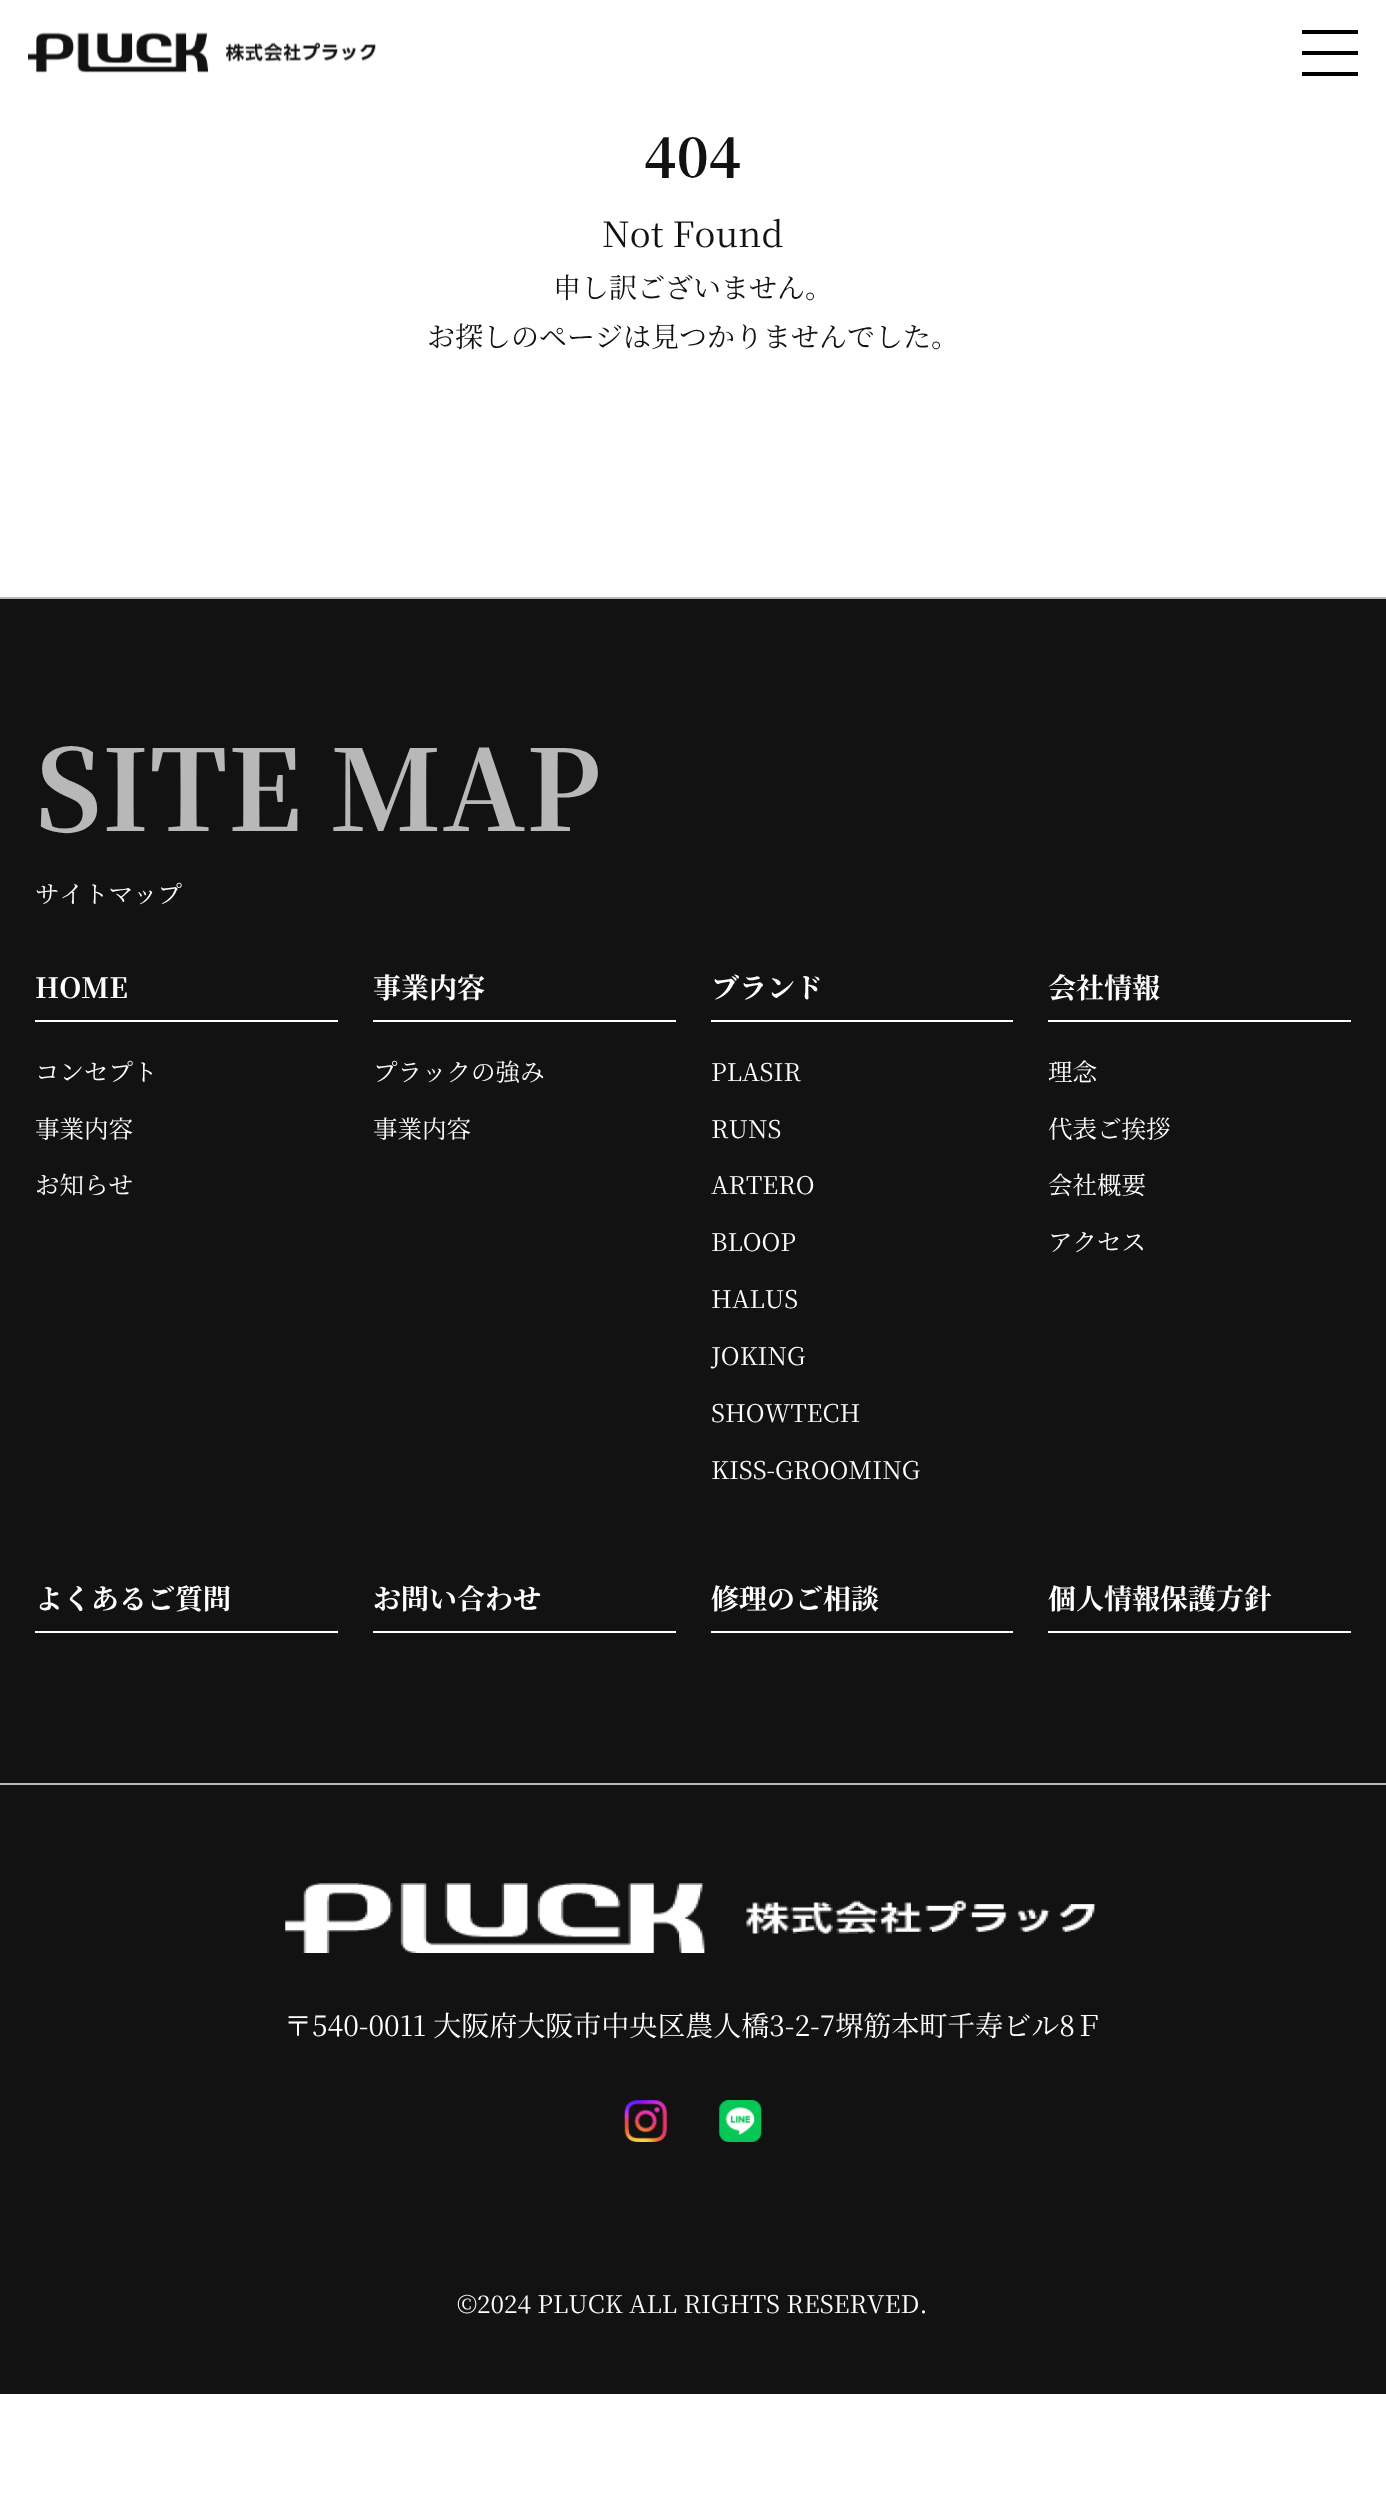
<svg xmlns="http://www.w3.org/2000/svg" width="1386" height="2498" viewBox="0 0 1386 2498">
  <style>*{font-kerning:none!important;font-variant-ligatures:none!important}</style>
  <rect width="100%" height="100%" fill="rgb(255,255,255)"/>
  <image x="28" y="32" width="348" height="41" href="pic1.png"/>
  <rect x="1302" y="51" width="56" height="4" fill="rgb(0,0,0)"/>
  <rect x="1302" y="30" width="56" height="4" fill="rgb(0,0,0)"/>
  <rect x="1302" y="72" width="56" height="4" fill="rgb(0,0,0)"/>
  <text x="644" y="177" font-family="Noto Serif JP" font-size="55" font-weight="bold" fill="rgb(18,18,18)">404</text>
  <text x="602" y="247" font-family="Noto Serif JP" font-size="35" fill="rgb(18,18,18)">Not Found</text>
  <g font-family="Noto Serif JP" font-size="28" fill="rgb(18,18,18)">
    <text x="553" y="298">申し訳ございません。</text>
    <text x="427" y="347">お探しのページは見つかりませんでした。</text>
  </g>
  <rect x="0" y="599" width="1386" height="1184" fill="rgb(18,18,18)"/>
  <rect x="0" y="597" width="1386" height="2" fill="rgb(184,184,184)"/>
  <rect x="0" y="1783" width="1386" height="2" fill="rgb(184,184,184)"/>
  <text x="35" y="831" font-family="Noto Serif JP" font-size="112" font-weight="bold" fill="rgb(184,184,184)">SITE MAP</text>
  <text x="35" y="903" font-family="Noto Serif JP" font-size="24.5" fill="rgb(255,255,255)">サイトマップ</text>
  <rect x="35" y="1020" width="303" height="2" fill="rgb(255,255,255)"/>
  <text x="35" y="998" font-family="Noto Serif JP" font-size="28" font-weight="bold" fill="rgb(255,255,255)">HOME</text>
  <g font-family="Noto Serif JP" font-size="24.5" fill="rgb(255,255,255)">
    <text x="35" y="1081">コンセプト</text>
    <text x="35" y="1138">事業内容</text>
    <text x="35" y="1194">お知らせ</text>
  </g>
  <rect x="373" y="1020" width="303" height="2" fill="rgb(255,255,255)"/>
  <text x="373" y="998" font-family="Noto Serif JP" font-size="28" font-weight="bold" fill="rgb(255,255,255)">事業内容</text>
  <g font-family="Noto Serif JP" font-size="24.5" fill="rgb(255,255,255)">
    <text x="373" y="1081">プラックの強み</text>
    <text x="373" y="1138">事業内容</text>
  </g>
  <rect x="711" y="1020" width="302" height="2" fill="rgb(255,255,255)"/>
  <text x="711" y="998" font-family="Noto Serif JP" font-size="28" font-weight="bold" fill="rgb(255,255,255)">ブランド</text>
  <g font-family="Noto Serif JP" font-size="24.5" fill="rgb(255,255,255)">
    <text x="711" y="1081">PLASIR</text>
    <text x="711" y="1138">RUNS</text>
    <text x="711" y="1194">ARTERO</text>
    <text x="711" y="1251">BLOOP</text>
    <text x="711" y="1308">HALUS</text>
    <text x="711" y="1365">JOKING</text>
    <text x="711" y="1422">SHOWTECH</text>
    <text x="711" y="1479">KISS-GROOMING</text>
  </g>
  <rect x="1048" y="1020" width="303" height="2" fill="rgb(255,255,255)"/>
  <text x="1048" y="998" font-family="Noto Serif JP" font-size="28" font-weight="bold" fill="rgb(255,255,255)">会社情報</text>
  <g font-family="Noto Serif JP" font-size="24.5" fill="rgb(255,255,255)">
    <text x="1048" y="1081">理念</text>
    <text x="1048" y="1138">代表ご挨拶</text>
    <text x="1048" y="1194">会社概要</text>
    <text x="1048" y="1251">アクセス</text>
  </g>
  <rect x="35" y="1631" width="303" height="2" fill="rgb(255,255,255)"/>
  <text x="35" y="1609" font-family="Noto Serif JP" font-size="28" font-weight="bold" fill="rgb(255,255,255)">よくあるご質問</text>
  <rect x="373" y="1631" width="303" height="2" fill="rgb(255,255,255)"/>
  <text x="373" y="1609" font-family="Noto Serif JP" font-size="28" font-weight="bold" fill="rgb(255,255,255)">お問い合わせ</text>
  <rect x="711" y="1631" width="302" height="2" fill="rgb(255,255,255)"/>
  <text x="711" y="1609" font-family="Noto Serif JP" font-size="28" font-weight="bold" fill="rgb(255,255,255)">修理のご相談</text>
  <rect x="1048" y="1631" width="303" height="2" fill="rgb(255,255,255)"/>
  <text x="1048" y="1609" font-family="Noto Serif JP" font-size="28" font-weight="bold" fill="rgb(255,255,255)">個人情報保護方針</text>
  <rect x="0" y="1785" width="1386" height="609" fill="rgb(18,18,18)"/>
  <image x="285" y="1883" width="811" height="70" href="pic2.png"/>
  <text x="284" y="2036" font-family="Noto Serif JP" font-size="28" fill="rgb(255,255,255)">〒540-0011 大阪府大阪市中央区農人橋3-2-7堺筋本町千寿ビル8Ｆ</text>
  <image x="624" y="2100" width="43" height="42" href="pic3.png"/>
  <image x="719" y="2100" width="43" height="42" href="pic4.png"/>
  <text x="457" y="2313" font-family="Noto Serif JP" font-size="24.5" fill="rgb(255,255,255)">©2024 PLUCK ALL RIGHTS RESERVED.</text>
</svg>
